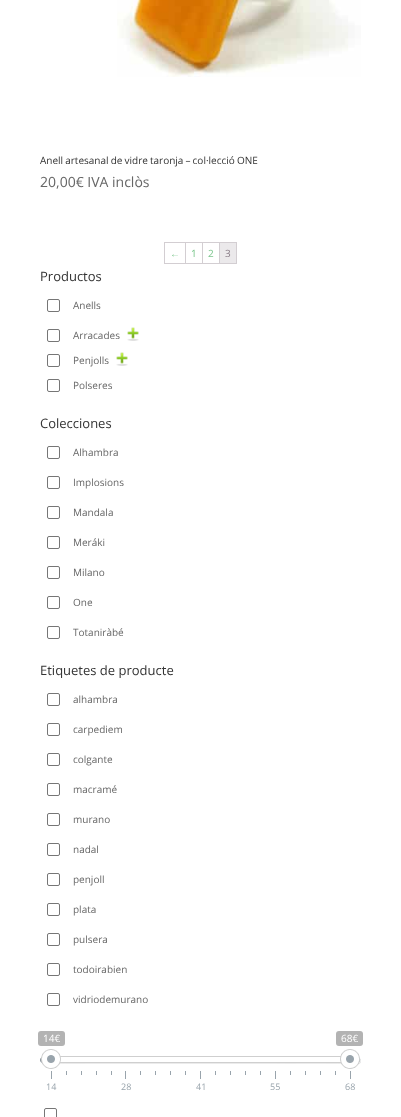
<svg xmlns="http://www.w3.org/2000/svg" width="401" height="1117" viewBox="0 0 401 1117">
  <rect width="100%" height="100%" fill="rgb(255,255,255)"/>
  <image x="117" y="0" width="244" height="77" href="pic1.png"/>
  <text x="40" y="164" word-spacing="-0.5" font-family="Open Sans" font-size="10" fill="rgb(51,51,51)">Anell artesanal de vidre taronja – col·lecció ONE</text>
  <text x="40" y="187" font-family="Open Sans" font-size="14" fill="rgb(102,102,102)">20,00€ IVA inclòs</text>
  <rect x="164" y="242" width="73" height="1" fill="rgb(211,206,210)"/>
  <rect x="164" y="263" width="73" height="1" fill="rgb(211,206,210)"/>
  <rect x="164" y="242" width="1" height="22" fill="rgb(211,206,210)"/>
  <rect x="185" y="243" width="1" height="20" fill="rgb(211,206,210)"/>
  <text x="170" y="257" font-family="Liberation Sans" font-size="10" fill="rgb(124,198,141)">←</text>
  <rect x="202" y="243" width="1" height="20" fill="rgb(211,206,210)"/>
  <text x="191" y="257" font-family="Open Sans" font-size="10" fill="rgb(124,198,141)">1</text>
  <rect x="219" y="243" width="1" height="20" fill="rgb(211,206,210)"/>
  <text x="208" y="257" font-family="Open Sans" font-size="10" fill="rgb(124,198,141)">2</text>
  <rect x="236" y="243" width="1" height="20" fill="rgb(211,206,210)"/>
  <rect x="220" y="243" width="16" height="20" fill="rgb(235,233,235)"/>
  <text x="225" y="257" font-family="Open Sans" font-size="10" fill="rgb(138,126,136)">3</text>
  <text x="40" y="281" font-family="Open Sans" font-size="13" fill="rgb(51,51,51)">Productos</text>
  <rect x="47.5" y="299.5" width="12" height="12" rx="1.5" fill="none" stroke="rgb(118,118,118)"/>
  <text x="73" y="309" font-family="Open Sans" font-size="10" fill="rgb(102,102,102)">Anells</text>
  <rect x="47.5" y="329.5" width="12" height="12" rx="1.5" fill="none" stroke="rgb(118,118,118)"/>
  <text x="73" y="339" font-family="Open Sans" font-size="10" fill="rgb(102,102,102)">Arracades</text>
  <image x="127" y="327" width="12" height="14" href="pic2.png"/>
  <rect x="47.5" y="354.5" width="12" height="12" rx="1.5" fill="none" stroke="rgb(118,118,118)"/>
  <text x="73" y="364" font-family="Open Sans" font-size="10" fill="rgb(102,102,102)">Penjolls</text>
  <image x="116" y="352" width="12" height="14" href="pic3.png"/>
  <rect x="47.5" y="379.5" width="12" height="12" rx="1.5" fill="none" stroke="rgb(118,118,118)"/>
  <text x="73" y="389" font-family="Open Sans" font-size="10" fill="rgb(102,102,102)">Polseres</text>
  <text x="40" y="428" font-family="Open Sans" font-size="13" fill="rgb(51,51,51)">Colecciones</text>
  <rect x="47.5" y="446.5" width="12" height="12" rx="1.5" fill="none" stroke="rgb(118,118,118)"/>
  <text x="73" y="456" font-family="Open Sans" font-size="10" fill="rgb(102,102,102)">Alhambra</text>
  <rect x="47.5" y="476.5" width="12" height="12" rx="1.5" fill="none" stroke="rgb(118,118,118)"/>
  <text x="73" y="486" font-family="Open Sans" font-size="10" fill="rgb(102,102,102)">Implosions</text>
  <rect x="47.5" y="506.5" width="12" height="12" rx="1.5" fill="none" stroke="rgb(118,118,118)"/>
  <text x="73" y="516" font-family="Open Sans" font-size="10" fill="rgb(102,102,102)">Mandala</text>
  <rect x="47.5" y="536.5" width="12" height="12" rx="1.5" fill="none" stroke="rgb(118,118,118)"/>
  <text x="73" y="546" font-family="Open Sans" font-size="10" fill="rgb(102,102,102)">Meráki</text>
  <rect x="47.5" y="566.5" width="12" height="12" rx="1.5" fill="none" stroke="rgb(118,118,118)"/>
  <text x="73" y="576" font-family="Open Sans" font-size="10" fill="rgb(102,102,102)">Milano</text>
  <rect x="47.5" y="596.5" width="12" height="12" rx="1.5" fill="none" stroke="rgb(118,118,118)"/>
  <text x="73" y="606" font-family="Open Sans" font-size="10" fill="rgb(102,102,102)">One</text>
  <rect x="47.5" y="626.5" width="12" height="12" rx="1.5" fill="none" stroke="rgb(118,118,118)"/>
  <text x="73" y="636" font-family="Open Sans" font-size="10" fill="rgb(102,102,102)">Totaniràbé</text>
  <text x="40" y="675" font-family="Open Sans" font-size="13" fill="rgb(51,51,51)">Etiquetes de producte</text>
  <rect x="47.5" y="693.5" width="12" height="12" rx="1.5" fill="none" stroke="rgb(118,118,118)"/>
  <text x="73" y="703" font-family="Open Sans" font-size="10" fill="rgb(102,102,102)">alhambra</text>
  <rect x="47.5" y="723.5" width="12" height="12" rx="1.5" fill="none" stroke="rgb(118,118,118)"/>
  <text x="73" y="733" font-family="Open Sans" font-size="10" fill="rgb(102,102,102)">carpediem</text>
  <rect x="47.5" y="753.5" width="12" height="12" rx="1.5" fill="none" stroke="rgb(118,118,118)"/>
  <text x="73" y="763" font-family="Open Sans" font-size="10" fill="rgb(102,102,102)">colgante</text>
  <rect x="47.5" y="783.5" width="12" height="12" rx="1.5" fill="none" stroke="rgb(118,118,118)"/>
  <text x="73" y="793" font-family="Open Sans" font-size="10" fill="rgb(102,102,102)">macramé</text>
  <rect x="47.5" y="813.5" width="12" height="12" rx="1.5" fill="none" stroke="rgb(118,118,118)"/>
  <text x="73" y="823" font-family="Open Sans" font-size="10" fill="rgb(102,102,102)">murano</text>
  <rect x="47.5" y="843.5" width="12" height="12" rx="1.5" fill="none" stroke="rgb(118,118,118)"/>
  <text x="73" y="853" font-family="Open Sans" font-size="10" fill="rgb(102,102,102)">nadal</text>
  <rect x="47.5" y="873.5" width="12" height="12" rx="1.5" fill="none" stroke="rgb(118,118,118)"/>
  <text x="73" y="883" font-family="Open Sans" font-size="10" fill="rgb(102,102,102)">penjoll</text>
  <rect x="47.5" y="903.5" width="12" height="12" rx="1.5" fill="none" stroke="rgb(118,118,118)"/>
  <text x="73" y="913" font-family="Open Sans" font-size="10" fill="rgb(102,102,102)">plata</text>
  <rect x="47.5" y="933.5" width="12" height="12" rx="1.5" fill="none" stroke="rgb(118,118,118)"/>
  <text x="73" y="943" font-family="Open Sans" font-size="10" fill="rgb(102,102,102)">pulsera</text>
  <rect x="47.5" y="963.5" width="12" height="12" rx="1.5" fill="none" stroke="rgb(118,118,118)"/>
  <text x="73" y="973" font-family="Open Sans" font-size="10" fill="rgb(102,102,102)">todoirabien</text>
  <rect x="47.5" y="993.5" width="12" height="12" rx="1.5" fill="none" stroke="rgb(118,118,118)"/>
  <text x="73" y="1003" font-family="Open Sans" font-size="10" fill="rgb(102,102,102)">vidriodemurano</text>
  <rect x="38" y="1031" width="27" height="15" rx="3" fill="rgb(179,179,179)"/>
  <text x="43" y="1042" font-family="Open Sans" font-size="10" fill="rgb(255,255,255)">14€</text>
  <rect x="336" y="1031" width="27" height="15" rx="3" fill="rgb(179,179,179)"/>
  <text x="341" y="1042" font-family="Open Sans" font-size="10" fill="rgb(255,255,255)">68€</text>
  <image x="40" y="1057" width="35" height="7" href="pic4.png"/>
  <image x="75" y="1063" width="257" height="1" href="pic5.png"/>
  <image x="332" y="1057" width="29" height="7" href="pic6.png"/>
  <image x="52" y="1056" width="297" height="8" href="pic8.png"/>
  <image x="41" y="1049" width="20" height="20" href="pic7.png"/>
  <image x="340" y="1049" width="20" height="20" href="pic9.png"/>
  <rect x="51" y="1071" width="1" height="8" fill="rgb(153,164,172)"/>
  <rect x="66" y="1071" width="1" height="4" fill="rgb(153,164,172)"/>
  <rect x="81" y="1071" width="1" height="4" fill="rgb(153,164,172)"/>
  <rect x="96" y="1071" width="1" height="4" fill="rgb(153,164,172)"/>
  <rect x="111" y="1071" width="1" height="4" fill="rgb(153,164,172)"/>
  <rect x="125" y="1071" width="1" height="8" fill="rgb(153,164,172)"/>
  <rect x="140" y="1071" width="1" height="4" fill="rgb(153,164,172)"/>
  <rect x="155" y="1071" width="1" height="4" fill="rgb(153,164,172)"/>
  <rect x="170" y="1071" width="1" height="4" fill="rgb(153,164,172)"/>
  <rect x="185" y="1071" width="1" height="4" fill="rgb(153,164,172)"/>
  <rect x="200" y="1071" width="1" height="8" fill="rgb(153,164,172)"/>
  <rect x="215" y="1071" width="1" height="4" fill="rgb(153,164,172)"/>
  <rect x="230" y="1071" width="1" height="4" fill="rgb(153,164,172)"/>
  <rect x="245" y="1071" width="1" height="4" fill="rgb(153,164,172)"/>
  <rect x="260" y="1071" width="1" height="4" fill="rgb(153,164,172)"/>
  <rect x="275" y="1071" width="1" height="8" fill="rgb(153,164,172)"/>
  <rect x="290" y="1071" width="1" height="4" fill="rgb(153,164,172)"/>
  <rect x="305" y="1071" width="1" height="4" fill="rgb(153,164,172)"/>
  <rect x="320" y="1071" width="1" height="4" fill="rgb(153,164,172)"/>
  <rect x="335" y="1071" width="1" height="4" fill="rgb(153,164,172)"/>
  <rect x="350" y="1071" width="1" height="8" fill="rgb(153,164,172)"/>
  <g font-family="Open Sans" font-size="9" fill="rgb(153,164,172)">
    <text x="46" y="1090">14</text>
    <text x="121" y="1090">28</text>
    <text x="196" y="1090">41</text>
    <text x="270" y="1090">55</text>
    <text x="345" y="1090">68</text>
  </g>
  <rect x="44.5" y="1108.5" width="12" height="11" rx="1.5" fill="none" stroke="rgb(118,118,118)"/>
</svg>
